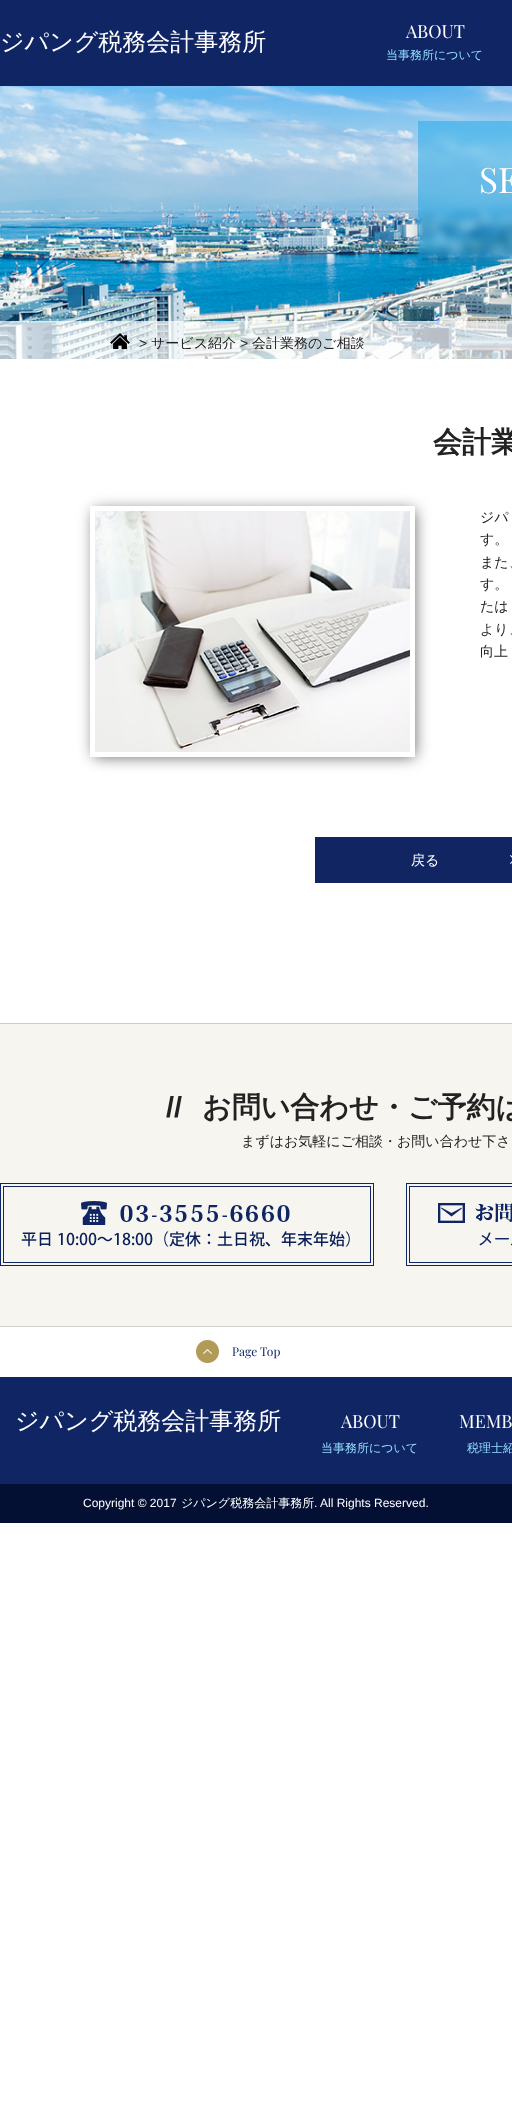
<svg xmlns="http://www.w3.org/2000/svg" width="512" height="2116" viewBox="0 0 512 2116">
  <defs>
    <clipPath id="clip1"><rect x="110" y="332" width="255" height="17"/></clipPath>
    <clipPath id="clip2"><path d="M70 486H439V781H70ZM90 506H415V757H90Z" clip-rule="evenodd"/></clipPath>
  </defs>
  <rect width="100%" height="100%" fill="rgb(255,255,255)"/>
  <rect x="0" y="0" width="512" height="86" fill="rgb(16,37,99)"/>
  <text x="0" y="50" font-family="WenQuanYi Zen Hei" font-size="24" font-weight="500" fill="rgb(255,255,255)">ジパング税務会計事務所</text>
  <text x="406" y="38" font-family="Playfair Display" font-size="18" fill="rgb(255,255,255)">ABOUT</text>
  <text x="386" y="59" font-family="WenQuanYi Zen Hei" font-size="12" font-weight="500" fill="rgb(147,221,255)">当事務所について</text>
  <image x="0" y="86" width="512" height="273" href="pic1.png"/>
  <image x="410" y="111" width="102" height="156" href="pic2.png"/>
  <rect x="418" y="121" width="94" height="138" fill="rgba(0,160,233,0.4)"/>
  <text x="479" y="193" font-family="Playfair Display" font-size="35" fill="rgb(255,255,255)">SE</text>
  <rect x="0" y="321" width="512" height="38" fill="rgba(255,255,255,0.7)"/>
  <image x="110" y="333" width="20" height="16" href="pic3.png"/>
  <text x="139" y="348" font-family="Liberation Sans" font-size="14" fill="rgb(34,34,34)">&gt;</text>
  <g clip-path="url(#clip1)">
    <text x="151" y="348" font-family="WenQuanYi Zen Hei" font-size="14" font-weight="500" fill="rgb(34,34,34)">サービス紹介</text>
  </g>
  <text x="240" y="348" font-family="Liberation Sans" font-size="14" fill="rgb(34,34,34)">&gt;</text>
  <g clip-path="url(#clip1)">
    <text x="252" y="348" font-family="WenQuanYi Zen Hei" font-size="14" font-weight="500" fill="rgb(34,34,34)">会計業務のご相談</text>
  </g>
  <text x="433" y="452" font-family="WenQuanYi Zen Hei" font-size="29" font-weight="bold" fill="rgb(34,34,34)">会計業</text>
  <g clip-path="url(#clip2)">
    <rect x="94" y="510" width="321" height="247" fill="rgba(0,0,0,0.6)" filter="blur(7.5px)"/>
  </g>
  <image x="95" y="511" width="315" height="241" href="pic4.png"/>
  <g font-family="WenQuanYi Zen Hei" font-size="14" font-weight="500" fill="rgb(34,34,34)">
    <text>
      <tspan x="480" y="522">ジパ</tspan>
      <tspan x="480" y="544">す。</tspan>
      <tspan x="480" y="567">また、</tspan>
      <tspan x="480" y="589">す。</tspan>
      <tspan x="480" y="611">たは</tspan>
      <tspan x="480" y="634">より、</tspan>
      <tspan x="480" y="656">向上</tspan>
    </text>
  </g>
  <rect x="315" y="837" width="197" height="46" fill="rgb(16,37,98)"/>
  <image x="510" y="855" width="2" height="9" href="pic5.png"/>
  <text x="411" y="865" font-family="WenQuanYi Zen Hei" font-size="14" font-weight="500" fill="rgb(255,255,255)">戻る</text>
  <rect x="0" y="1024" width="512" height="302" fill="rgb(246,245,240)"/>
  <rect x="0" y="1023" width="512" height="1" fill="rgb(204,204,204)"/>
  <text x="166" y="1117" font-family="Liberation Sans" font-size="29" font-weight="bold" fill="rgb(34,34,34)">//</text>
  <text x="202" y="1117" font-family="WenQuanYi Zen Hei" font-size="29" font-weight="bold" fill="rgb(34,34,34)">お問い合わせ・ご予約は</text>
  <text x="241" y="1146" font-family="WenQuanYi Zen Hei" font-size="14" font-weight="500" fill="rgb(34,34,34)">まずはお気軽にご相談・お問い合わせ下さ</text>
  <image x="0" y="1183" width="374" height="83" href="pic6.png"/>
  <image x="406" y="1183" width="106" height="83" href="pic7.png"/>
  <rect x="0" y="1326" width="512" height="1" fill="rgb(210,210,210)"/>
  <image x="196" y="1340" width="23" height="23" href="pic8.png"/>
  <text x="232" y="1356" font-family="Playfair Display" font-size="12" fill="rgb(16,37,99)">Page Top</text>
  <rect x="0" y="1377" width="512" height="107" fill="rgb(16,37,99)"/>
  <text x="15" y="1429" font-family="WenQuanYi Zen Hei" font-size="24" font-weight="500" fill="rgb(255,255,255)">ジパング税務会計事務所</text>
  <text x="341" y="1428" font-family="Playfair Display" font-size="18" fill="rgb(255,255,255)">ABOUT</text>
  <text x="321" y="1452" font-family="WenQuanYi Zen Hei" font-size="12" font-weight="500" fill="rgb(147,221,255)">当事務所について</text>
  <text x="459" y="1428" font-family="Playfair Display" font-size="18" fill="rgb(255,255,255)">MEMB</text>
  <text x="467" y="1452" font-family="WenQuanYi Zen Hei" font-size="12" font-weight="500" fill="rgb(147,221,255)">税理士紹</text>
  <rect x="0" y="1484" width="512" height="39" fill="rgb(4,16,51)"/>
  <text x="83" y="1507" font-family="Liberation Sans" font-size="12" fill="rgb(255,255,255)">Copyright © 2017</text>
  <text x="181" y="1507" font-family="WenQuanYi Zen Hei" font-size="12" font-weight="500" fill="rgb(255,255,255)">ジパング税務会計事務所</text>
  <text x="314" y="1507" font-family="Liberation Sans" font-size="12" fill="rgb(255,255,255)">. All Rights Reserved.</text>
</svg>
